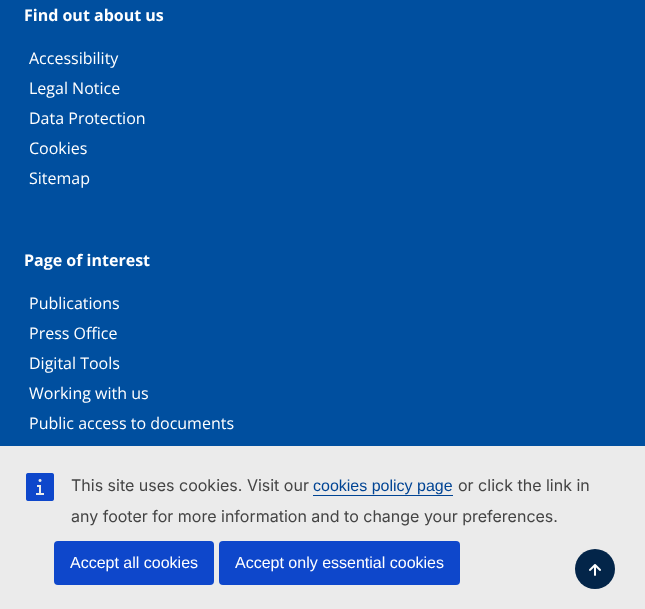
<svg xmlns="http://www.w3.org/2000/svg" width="645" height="609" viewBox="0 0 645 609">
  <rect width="100%" height="100%" fill="rgb(0,79,159)"/>
  <text x="24" y="21" font-family="Open Sans" font-size="16" font-weight="bold" fill="rgb(255,255,255)">Find out about us</text>
  <g font-family="Open Sans" font-size="16" fill="rgb(255,255,255)">
    <text>
      <tspan x="29" y="64">Accessibility</tspan>
      <tspan x="29" y="94">Legal Notice</tspan>
      <tspan x="29" y="124">Data Protection</tspan>
      <tspan x="29" y="154">Cookies</tspan>
      <tspan x="29" y="184">Sitemap</tspan>
    </text>
  </g>
  <text x="24" y="266" font-family="Open Sans" font-size="16" font-weight="bold" fill="rgb(255,255,255)">Page of interest</text>
  <g font-family="Open Sans" font-size="16" fill="rgb(255,255,255)">
    <text>
      <tspan x="29" y="309">Publications</tspan>
      <tspan x="29" y="339">Press Office</tspan>
      <tspan x="29" y="369">Digital Tools</tspan>
      <tspan x="29" y="399">Working with us</tspan>
      <tspan x="29" y="429">Public access to documents</tspan>
    </text>
  </g>
  <rect x="0" y="446" width="645" height="163" fill="rgb(235,235,235)"/>
  <circle cx="595" cy="569" r="20" fill="rgb(3,37,73)"/>
  <image x="589" y="564" width="12" height="12" href="pic1.png"/>
  <image x="26" y="473" width="28" height="28" href="pic2.png"/>
  <text x="71" y="491" font-family="Inter" font-size="16" fill="rgb(68,68,68)">This site uses cookies. Visit our</text>
  <text x="313" y="491" font-family="Liberation Sans" font-size="16" fill="rgb(0,68,148)">cookies policy page</text>
  <rect x="313" y="495" width="140" height="1" fill="rgb(0,68,148)"/>
  <g font-family="Inter" font-size="16" fill="rgb(68,68,68)">
    <text x="458" y="491">or click the link in</text>
    <text x="71" y="522">any footer for more information and to change your preferences.</text>
  </g>
  <rect x="54" y="541" width="160" height="44" rx="4" fill="rgb(14,71,203)"/>
  <text x="70" y="568" font-family="Liberation Sans" font-size="16" fill="rgb(255,255,255)">Accept all cookies</text>
  <rect x="219" y="541" width="241" height="44" rx="4" fill="rgb(14,71,203)"/>
  <text x="235" y="568" font-family="Liberation Sans" font-size="16" fill="rgb(255,255,255)">Accept only essential cookies</text>
</svg>
